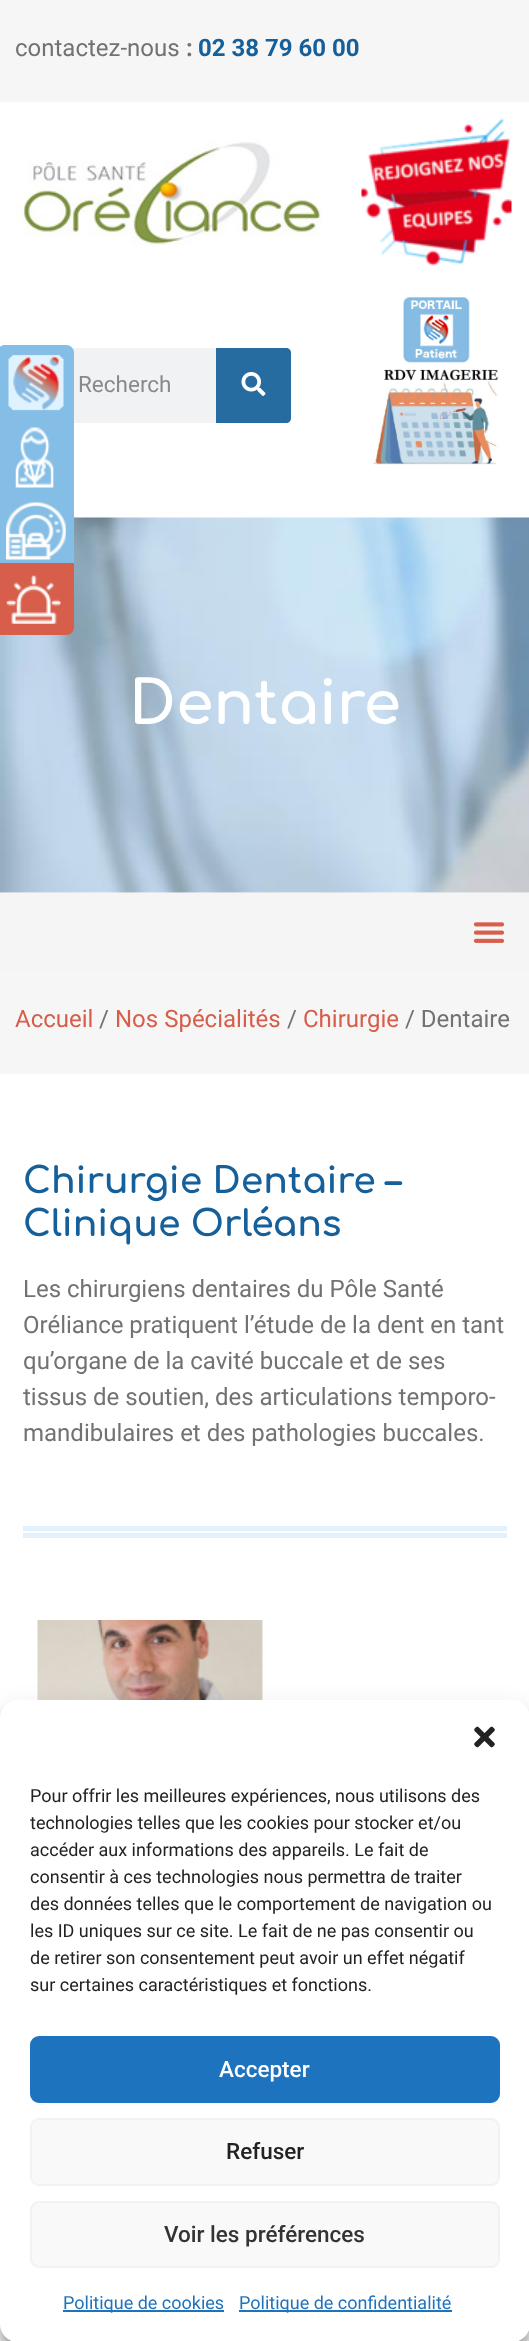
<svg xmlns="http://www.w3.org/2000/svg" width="529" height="2341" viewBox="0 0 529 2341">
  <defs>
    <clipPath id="clip1"><rect x="78" y="372" width="92" height="27"/></clipPath>
  </defs>
  <rect width="100%" height="100%" fill="rgb(255,255,255)"/>
  <rect x="0" y="0" width="529" height="102" fill="rgb(246,246,246)"/>
  <text x="15" y="56" font-family="Roboto" font-size="24" fill="rgb(114,114,114)">contactez-nous</text>
  <text x="186" y="56" font-family="Roboto" font-size="24" font-weight="bold" fill="rgb(114,114,114)">:</text>
  <text x="198" y="56" font-family="Roboto" font-size="24" font-weight="bold" fill="rgb(21,96,154)">02 38 79 60 00</text>
  <image x="15" y="140" width="307" height="105" href="pic1.png"/>
  <image x="361" y="118" width="151" height="148" href="pic2.png"/>
  <rect x="54" y="348" width="237" height="75" rx="5" fill="rgb(241,242,243)"/>
  <g clip-path="url(#clip1)">
    <text x="78" y="392" font-family="Roboto" font-size="22.5" fill="rgb(134,138,142)">Recherch</text>
  </g>
  <path d="M216 348H286C289 348 291 350 291 353V418C291 421 289 423 286 423H216Z" fill="rgb(38,108,161)"/>
  <image x="241" y="372" width="25" height="24" href="pic3.png"/>
  <image x="403" y="297" width="67" height="66" href="pic4.png"/>
  <image x="373" y="369" width="126" height="96" href="pic5.png"/>
  <image x="0" y="517" width="529" height="376" href="pic6.png"/>
  <text x="129" y="724" font-family="Comfortaa" font-size="60" font-weight="bold" fill="rgb(255,255,255)">Dentaire</text>
  <rect x="0" y="893" width="529" height="79" fill="rgb(245,245,245)"/>
  <image x="473" y="922" width="32" height="21" href="pic7.png"/>
  <rect x="0" y="972" width="529" height="102" fill="rgb(246,246,246)"/>
  <text x="15" y="1027" font-family="Roboto" font-size="24" fill="rgb(214,94,74)">Accueil</text>
  <text x="99" y="1027" font-family="Roboto" font-size="24" fill="rgb(114,114,114)">/</text>
  <text x="115" y="1027" font-family="Roboto" font-size="24" fill="rgb(214,94,74)">Nos Spécialités</text>
  <text x="287" y="1027" font-family="Roboto" font-size="24" fill="rgb(114,114,114)">/</text>
  <text x="303" y="1027" font-family="Roboto" font-size="24" fill="rgb(214,94,74)">Chirurgie</text>
  <text x="405" y="1027" font-family="Roboto" font-size="24" fill="rgb(114,114,114)">/ Dentaire</text>
  <path d="M5 345H66C70.5 345 74 348.5 74 353V420H-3V353C-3 348.5 .5 345 5 345Z" fill="rgb(132,189,229)"/>
  <image x="8" y="354" width="56" height="57" href="pic8.png"/>
  <rect x="0" y="420" width="74" height="143" fill="rgb(132,189,229)"/>
  <image x="15" y="427" width="39" height="61" href="pic9.png"/>
  <image x="6" y="502" width="60" height="58" href="pic10.png"/>
  <path d="M-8 563H74V627C74 631.5 70.5 635 66 635H0C-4.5 635-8 631.5-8 627Z" fill="rgb(214,94,74)"/>
  <image x="6" y="575" width="55" height="49" href="pic11.png"/>
  <g font-family="Comfortaa" font-size="36" font-weight="bold" fill="rgb(21,96,154)">
    <text>
      <tspan x="23" y="1193">Chirurgie Dentaire –</tspan>
      <tspan x="23" y="1236">Clinique Orléans</tspan>
    </text>
  </g>
  <g font-family="Roboto" font-size="24" fill="rgb(114,114,114)">
    <text>
      <tspan x="23" y="1297">Les chirurgiens dentaires du Pôle Santé</tspan>
      <tspan x="23" y="1333">Oréliance pratiquent l’étude de la dent en tant</tspan>
      <tspan x="23" y="1369">qu’organe de la cavité buccale et de ses</tspan>
      <tspan x="23" y="1405">tissus de soutien, des articulations temporo-</tspan>
      <tspan x="23" y="1441">mandibulaires et des pathologies buccales.</tspan>
    </text>
  </g>
  <rect x="23" y="1526" width="484" height="5" fill="rgb(226,241,251)"/>
  <rect x="23" y="1533" width="484" height="5" fill="rgb(226,241,251)"/>
  <image x="37" y="1620" width="226" height="80" href="pic12.png"/>
  <rect x="0" y="1709" width="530" height="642" rx="18" fill="rgba(0,0,0,0.23)" filter="blur(4.5px)"/>
  <rect x="0" y="1715" width="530" height="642" rx="18" fill="rgba(0,0,0,0.19)" filter="blur(15px)"/>
  <rect x="0" y="1700" width="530" height="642" rx="18" fill="rgb(255,255,255)"/>
  <image x="474" y="1726" width="21" height="22" href="pic13.png"/>
  <g font-family="Roboto" font-size="18" fill="rgb(34,34,34)">
    <text>
      <tspan x="30" y="1802">Pour offrir les meilleures expériences, nous utilisons des</tspan>
      <tspan x="30" y="1829">technologies telles que les cookies pour stocker et/ou</tspan>
      <tspan x="30" y="1856">accéder aux informations des appareils. Le fait de</tspan>
      <tspan x="30" y="1883">consentir à ces technologies nous permettra de traiter</tspan>
      <tspan x="30" y="1910">des données telles que le comportement de navigation ou</tspan>
      <tspan x="30" y="1937">les ID uniques sur ce site. Le fait de ne pas consentir ou</tspan>
      <tspan x="30" y="1964">de retirer son consentement peut avoir un effet négatif</tspan>
      <tspan x="30" y="1991">sur certaines caractéristiques et fonctions.</tspan>
    </text>
  </g>
  <rect x="31" y="2037" width="468" height="65" rx="8" fill="rgb(30,115,190)" stroke="rgb(30,115,190)" stroke-width="2"/>
  <text x="219" y="2077" font-family="Roboto" font-size="22.5" font-weight="500" fill="rgb(255,255,255)">Accepter</text>
  <rect x="31" y="2119" width="468" height="66" rx="8" fill="rgb(249,249,249)" stroke="rgb(242,242,242)" stroke-width="2"/>
  <text x="226" y="2159" font-family="Roboto" font-size="22.5" font-weight="500" fill="rgb(34,34,34)">Refuser</text>
  <rect x="31" y="2202" width="468" height="65" rx="8" fill="rgb(249,249,249)" stroke="rgb(242,242,242)" stroke-width="2"/>
  <text x="164" y="2242" font-family="Roboto" font-size="22.5" font-weight="500" fill="rgb(51,51,51)">Voir les préférences</text>
  <rect x="63" y="2310" width="161" height="2" fill="rgb(30,115,190)"/>
  <text x="63" y="2309" font-family="Roboto" font-size="18" fill="rgb(30,115,190)">Politique de cookies</text>
  <rect x="239" y="2310" width="213" height="2" fill="rgb(30,115,190)"/>
  <text x="239" y="2309" font-family="Roboto" font-size="18" fill="rgb(30,115,190)">Politique de confidentialité</text>
</svg>
